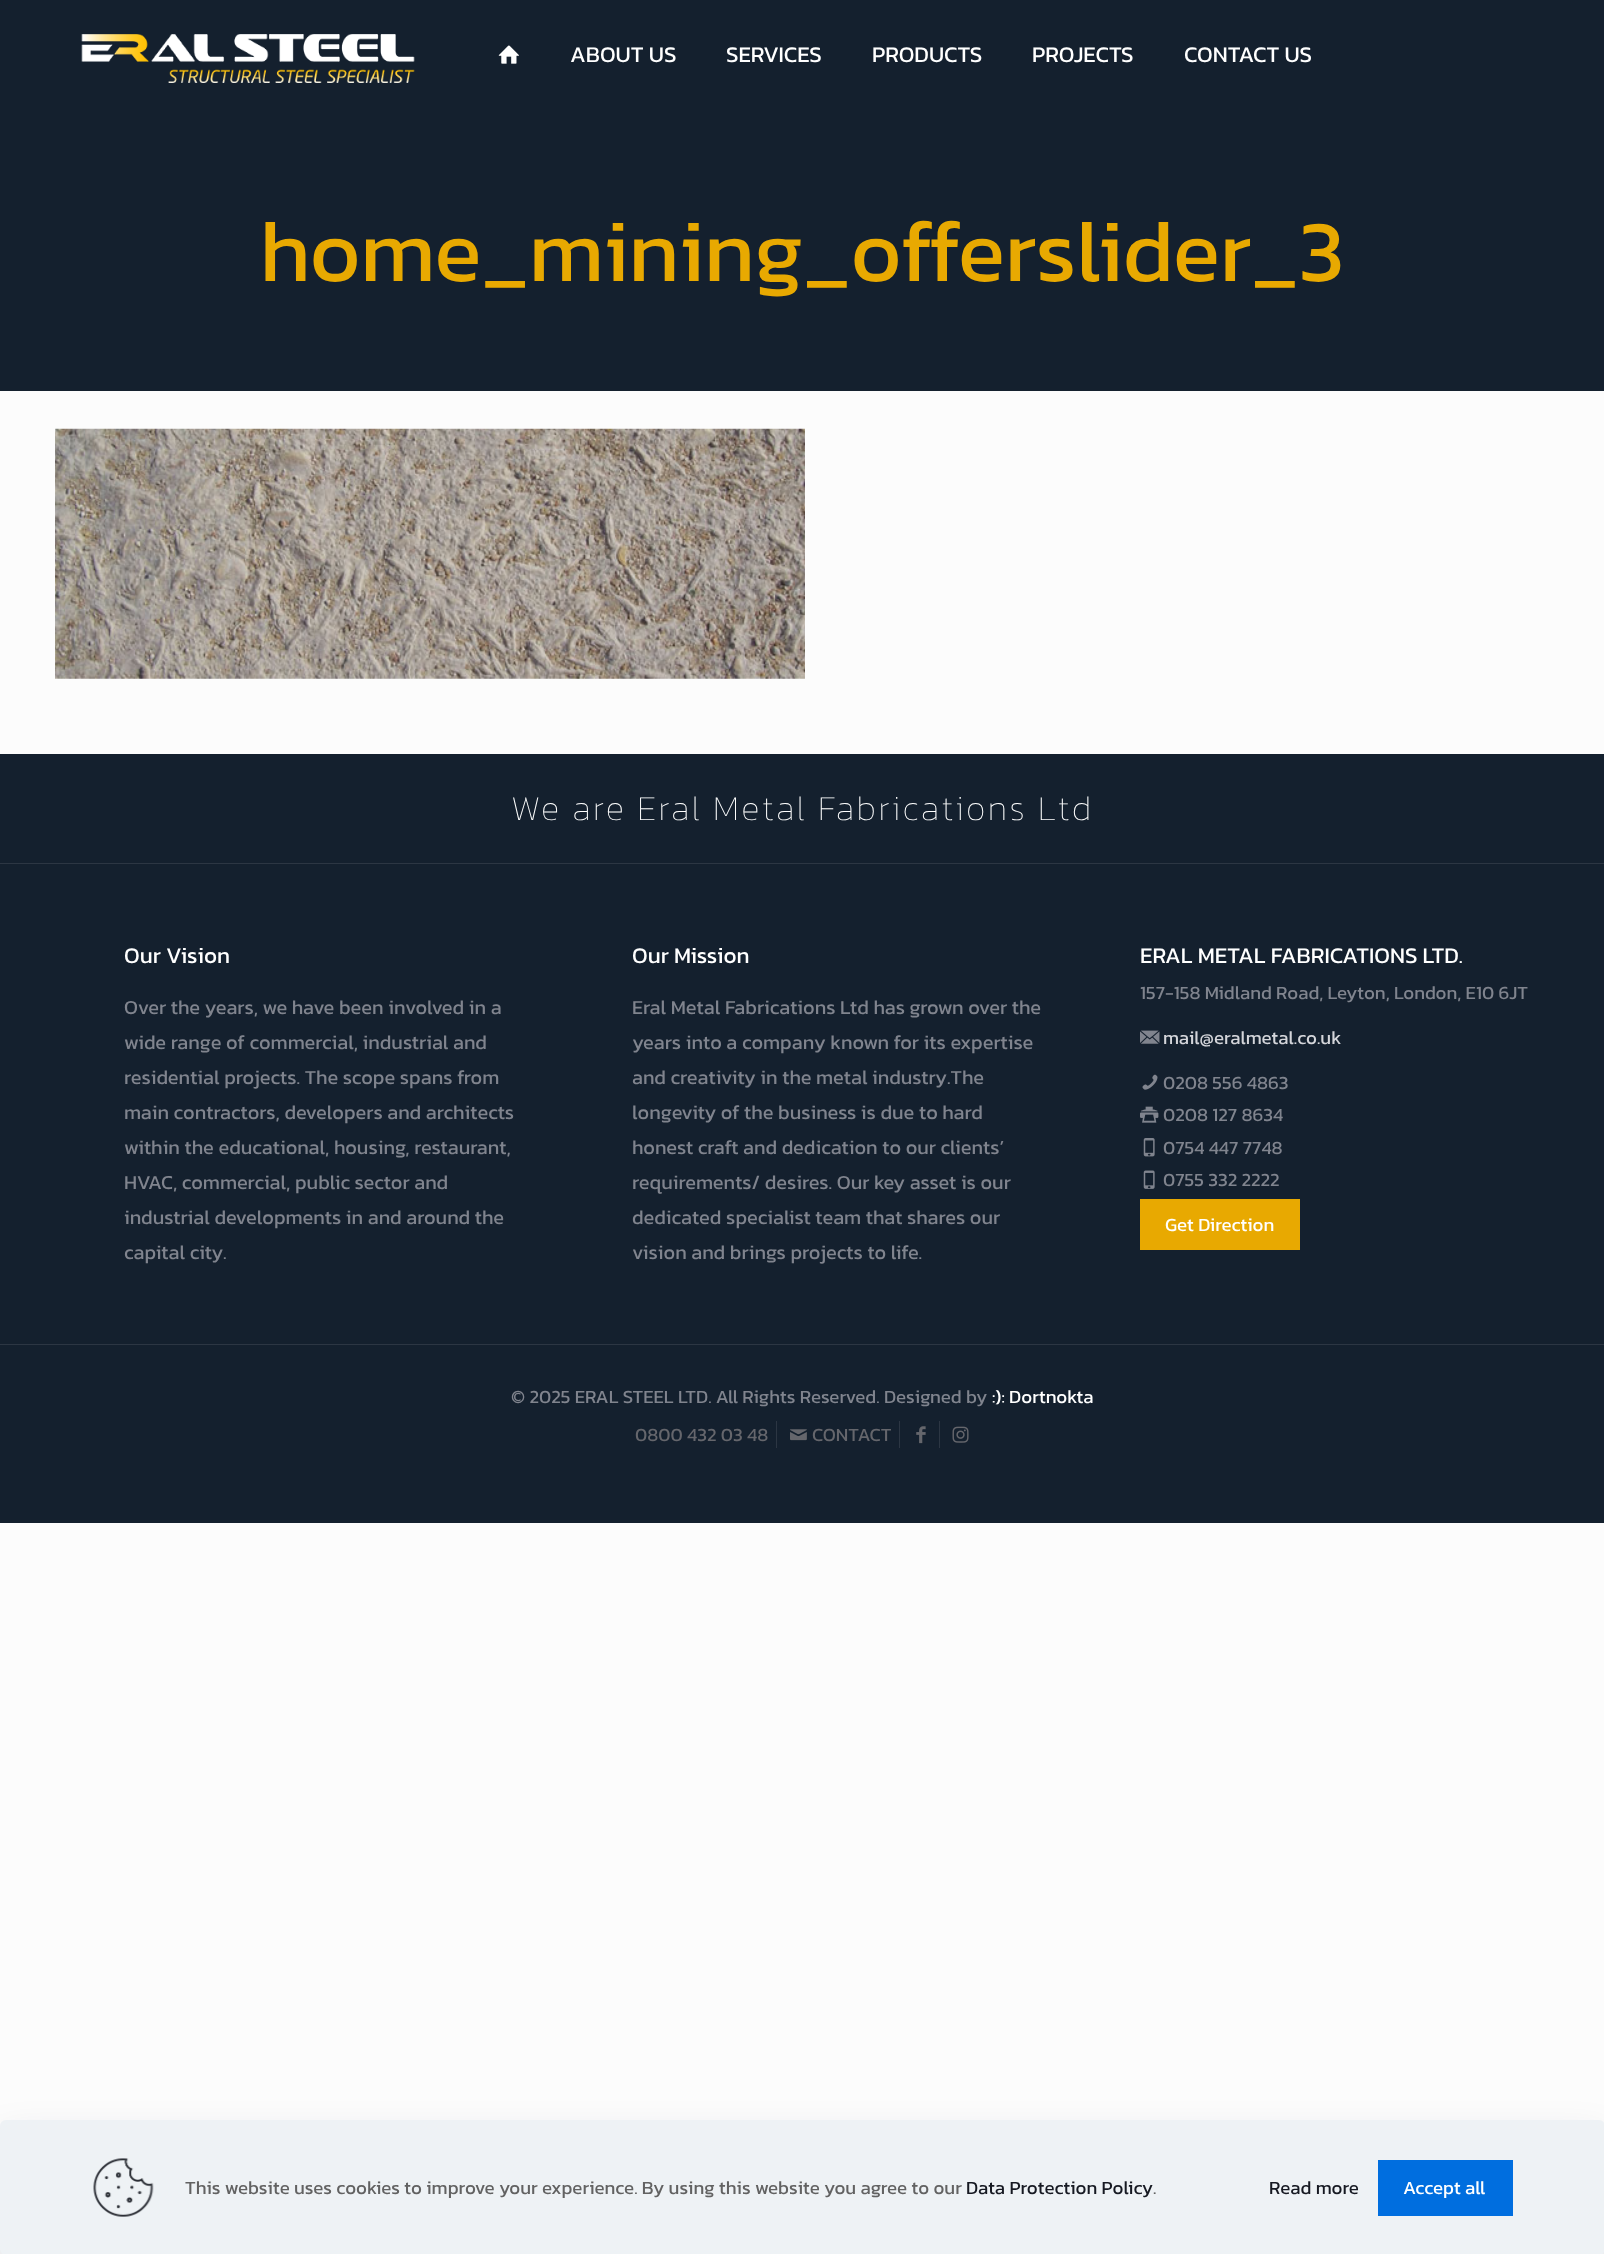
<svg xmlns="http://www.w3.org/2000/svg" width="1604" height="2254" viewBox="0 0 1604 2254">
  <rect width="100%" height="100%" fill="rgb(252,252,252)"/>
  <rect x="0" y="0" width="1604" height="391" fill="rgb(20,32,46)"/>
  <image x="81" y="34" width="334" height="49" href="pic1.png"/>
  <image x="498" y="45" width="21" height="19" href="pic2.png"/>
  <g font-family="Kanit" font-size="22.5" fill="rgb(255,255,255)">
    <text x="570" y="62">ABOUT US</text>
    <text x="726" y="62">SERVICES</text>
    <text x="872" y="62">PRODUCTS</text>
    <text x="1032" y="62">PROJECTS</text>
    <text x="1184" y="62">CONTACT US</text>
  </g>
  <text x="260" y="281" font-family="Kanit" font-size="87.5" fill="rgb(232,169,1)">home_mining_offerslider_3</text>
  <image x="55" y="428" width="750" height="251" href="pic3.png"/>
  <rect x="0" y="754" width="1604" height="769" fill="rgb(20,32,46)"/>
  <rect x="0" y="863" width="1604" height="1" fill="rgb(44,54,67)"/>
  <text x="511" y="820" font-family="Kanit" font-size="35" font-weight="100" letter-spacing="2.5" fill="rgb(255,255,255)">We are Eral Metal Fabrications Ltd</text>
  <text x="124" y="963" font-family="Kanit" font-size="22.5" fill="rgb(255,255,255)">Our Vision</text>
  <g font-family="Kanit" font-size="20" fill="rgb(128,132,142)">
    <text>
      <tspan x="124" y="1014">Over the years, we have been involved in a</tspan>
      <tspan x="124" y="1049">wide range of commercial, industrial and</tspan>
      <tspan x="124" y="1084">residential projects. The scope spans from</tspan>
      <tspan x="124" y="1119">main contractors, developers and architects</tspan>
      <tspan x="124" y="1154">within the educational, housing, restaurant,</tspan>
      <tspan x="124" y="1189">HVAC, commercial, public sector and</tspan>
      <tspan x="124" y="1224">industrial developments in and around the</tspan>
      <tspan x="124" y="1259">capital city.</tspan>
    </text>
  </g>
  <text x="632" y="963" font-family="Kanit" font-size="22.5" fill="rgb(255,255,255)">Our Mission</text>
  <g font-family="Kanit" font-size="20" fill="rgb(128,132,142)">
    <text>
      <tspan x="632" y="1014">Eral Metal Fabrications Ltd has grown over the</tspan>
      <tspan x="632" y="1049">years into a company known for its expertise</tspan>
      <tspan x="632" y="1084">and creativity in the metal industry.The</tspan>
      <tspan x="632" y="1119">longevity of the business is due to hard</tspan>
      <tspan x="632" y="1154">honest craft and dedication to our clients’</tspan>
      <tspan x="632" y="1189">requirements/ desires. Our key asset is our</tspan>
      <tspan x="632" y="1224">dedicated specialist team that shares our</tspan>
      <tspan x="632" y="1259">vision and brings projects to life.</tspan>
    </text>
  </g>
  <text x="1140" y="963" font-family="Kanit" font-size="22.5" fill="rgb(255,255,255)">ERAL METAL FABRICATIONS LTD.</text>
  <text x="1140" y="999" font-family="Kanit" font-size="18.75" fill="rgb(128,132,142)">157-158 Midland Road, Leyton, London, E10 6JT</text>
  <image x="1140" y="1030" width="20" height="14" href="pic4.png"/>
  <text x="1163" y="1044" font-family="Kanit" font-size="18.75" fill="rgb(212,213,218)">mail@eralmetal.co.uk</text>
  <image x="1142" y="1074" width="16" height="16" href="pic5.png"/>
  <text x="1163" y="1089" font-family="Kanit" font-size="18.75" fill="rgb(128,132,142)">0208 556 4863</text>
  <image x="1140" y="1106" width="19" height="17" href="pic6.png"/>
  <text x="1163" y="1121" font-family="Kanit" font-size="18.75" fill="rgb(128,132,142)">0208 127 8634</text>
  <image x="1143" y="1138" width="12" height="19" href="pic7.png"/>
  <text x="1163" y="1154" font-family="Kanit" font-size="18.75" fill="rgb(128,132,142)">0754 447 7748</text>
  <image x="1143" y="1170" width="12" height="19" href="pic8.png"/>
  <text x="1163" y="1186" font-family="Kanit" font-size="18.75" fill="rgb(128,132,142)">0755 332 2222</text>
  <rect x="1140" y="1199" width="160" height="51" fill="rgb(232,169,1)"/>
  <text x="1165" y="1231" font-family="Kanit" font-size="18.75" fill="rgb(255,255,255)">Get Direction</text>
  <rect x="0" y="1344" width="1604" height="1" fill="rgb(44,54,67)"/>
  <text x="511" y="1403" font-family="Kanit" font-size="18.75" fill="rgb(128,132,142)">© 2025 ERAL STEEL LTD. All Rights Reserved. Designed by</text>
  <text x="992" y="1403" font-family="Kanit" font-size="18.75" fill="rgb(255,255,255)">:): Dortnokta</text>
  <rect x="776" y="1421" width="1" height="27" fill="rgb(44,54,67)"/>
  <text x="635" y="1441" font-family="Kanit" font-size="18.75" fill="rgb(101,102,108)">0800 432 03 48</text>
  <rect x="899" y="1421" width="1" height="27" fill="rgb(44,54,67)"/>
  <image x="790" y="1429" width="17" height="12" href="pic9.png"/>
  <text x="812" y="1441" font-family="Kanit" font-size="18.75" fill="rgb(101,102,108)">CONTACT</text>
  <rect x="939" y="1421" width="1" height="27" fill="rgb(44,54,67)"/>
  <image x="916" y="1426" width="10" height="18" href="pic10.png"/>
  <image x="952" y="1426" width="17" height="17" href="pic11.png"/>
  <rect x="0" y="2139" width="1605" height="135" rx="6" fill="rgba(1,7,39,0.13)" filter="blur(19px)"/>
  <rect x="0" y="2120" width="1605" height="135" rx="6" fill="rgb(238,242,245)"/>
  <image x="93" y="2158" width="61" height="59" href="pic12.png"/>
  <text x="185" y="2194" font-family="Kanit" font-size="18.75" fill="rgb(98,98,98)">This website uses cookies to improve your experience. By using this website you agree to our</text>
  <text x="966" y="2194" font-family="Kanit" font-size="18.75" fill="rgb(22,25,34)">Data Protection Policy</text>
  <text x="1153" y="2194" font-family="Kanit" font-size="18.75" fill="rgb(98,98,98)">.</text>
  <text x="1269" y="2194" font-family="Kanit" font-size="18.75" fill="rgb(22,25,34)">Read more</text>
  <rect x="1378" y="2160" width="135" height="56" fill="rgb(0,110,223)"/>
  <text x="1403" y="2194" font-family="Kanit" font-size="18.75" fill="rgb(255,255,255)">Accept all</text>
</svg>
